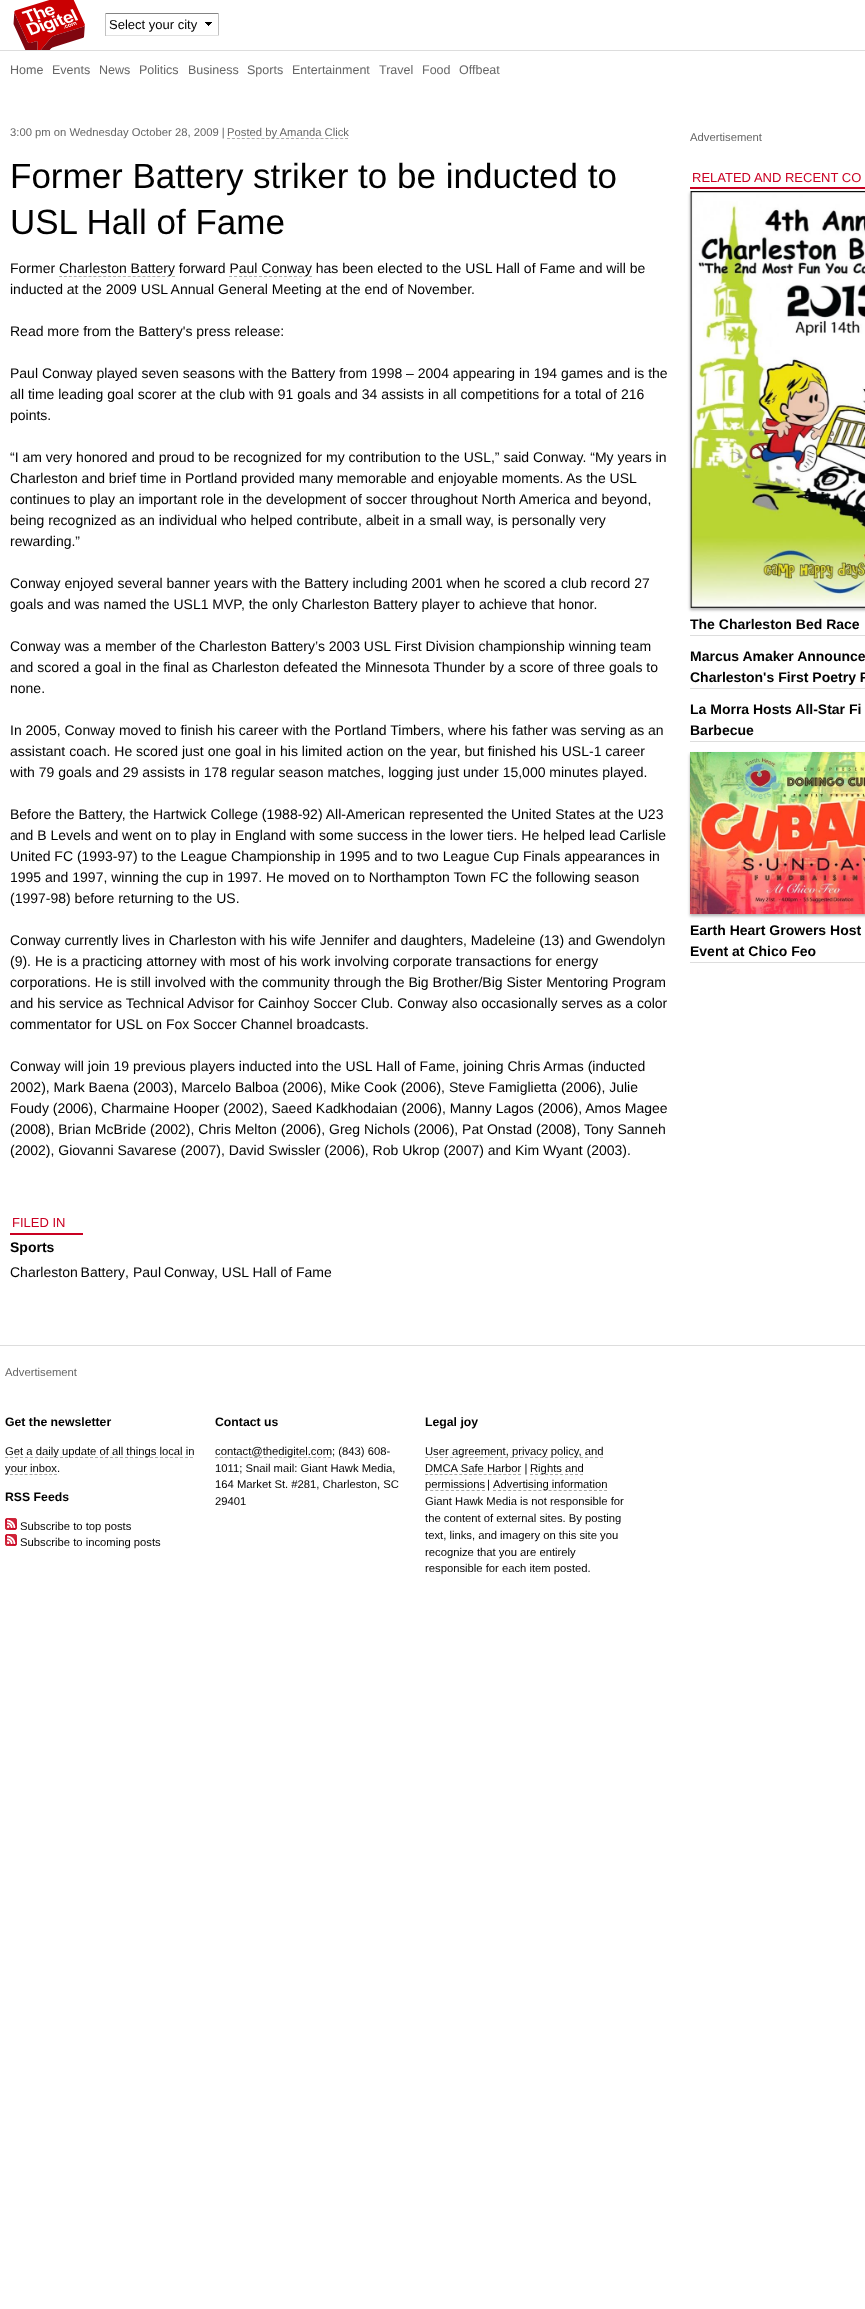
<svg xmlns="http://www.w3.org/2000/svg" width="865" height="2309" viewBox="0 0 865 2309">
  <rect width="100%" height="100%" fill="rgb(255,255,255)"/>
  <rect x="0" y="50" width="865" height="1" fill="rgb(221,221,221)"/>
  <image x="13" y="0" width="72" height="50" href="pic1.png"/>
  <image x="205" y="22" width="7" height="4" href="pic2.png"/>
  <rect x="105" y="13" width="114" height="1" fill="rgb(132,132,132)"/>
  <rect x="218" y="13" width="1" height="23" fill="rgb(193,193,193)"/>
  <rect x="105" y="35" width="114" height="1" fill="rgb(225,225,225)"/>
  <rect x="105" y="13" width="1" height="23" fill="rgb(193,193,193)"/>
  <text x="109" y="29" font-family="Liberation Sans" font-size="13" fill="rgb(0,0,0)">Select your city</text>
  <g font-family="Liberation Sans" font-size="12.5" fill="rgb(102,102,102)">
    <text x="10" y="74">Home</text>
    <text x="52" y="74">Events</text>
    <text x="99" y="74">News</text>
    <text x="139" y="74">Politics</text>
    <text x="188" y="74">Business</text>
    <text x="247" y="74">Sports</text>
    <text x="292" y="74">Entertainment</text>
    <text x="379" y="74">Travel</text>
    <text x="422" y="74">Food</text>
    <text x="459" y="74">Offbeat</text>
  </g>
  <text x="10" y="136" font-family="Liberation Sans" font-size="11.25" fill="rgb(102,102,102)">3:00 pm on Wednesday October 28, 2009 |</text>
  <path d="M227 138.5H348" fill="none" stroke="rgb(170,170,170)" stroke-dasharray="3 1.92"/>
  <text x="227" y="136" font-family="Liberation Sans" font-size="11.25" fill="rgb(102,102,102)">Posted by Amanda Click</text>
  <g font-family="Liberation Sans" font-size="35" fill="rgb(0,0,0)">
    <text>
      <tspan x="10" y="188">Former Battery striker to be inducted to</tspan>
      <tspan x="10" y="234">USL Hall of Fame</tspan>
    </text>
  </g>
  <text x="10" y="273" font-family="Liberation Sans" font-size="14" fill="rgb(0,0,0)">Former Charleston Battery forward Paul Conway has been elected to the USL Hall of Fame and will be</text>
  <path d="M59 276.5H175" fill="none" stroke="rgb(170,170,170)" stroke-dasharray="3 1.91"/>
  <path d="M229 276.5H312" fill="none" stroke="rgb(170,170,170)" stroke-dasharray="3 2"/>
  <g font-family="Liberation Sans" font-size="14" fill="rgb(0,0,0)">
    <text x="10" y="294">inducted at the 2009 USL Annual General Meeting at the end of November.</text>
    <text x="10" y="336">Read more from the Battery's press release:</text>
    <text>
      <tspan x="10" y="378">Paul Conway played seven seasons with the Battery from 1998 – 2004 appearing in 194 games and is the</tspan>
      <tspan x="10" y="399">all time leading goal scorer at the club with 91 goals and 34 assists in all competitions for a total of 216</tspan>
      <tspan x="10" y="420">points.</tspan>
    </text>
    <text>
      <tspan x="10" y="462">“I am very honored and proud to be recognized for my contribution to the USL,” said Conway. “My years in</tspan>
      <tspan x="10" y="483">Charleston and brief time in Portland provided many memorable and enjoyable moments.</tspan>
    </text>
    <text x="566" y="483">As the USL</text>
    <text>
      <tspan x="10" y="504">continues to play an important role in the development of soccer throughout North America and beyond,</tspan>
      <tspan x="10" y="525">being recognized as an individual who helped contribute, albeit in a small way, is personally very</tspan>
      <tspan x="10" y="546">rewarding.”</tspan>
    </text>
    <text>
      <tspan x="10" y="588">Conway enjoyed several banner years with the Battery including 2001 when he scored a club record 27</tspan>
      <tspan x="10" y="609">goals and was named the USL1 MVP, the only Charleston Battery player to achieve that honor.</tspan>
    </text>
    <text>
      <tspan x="10" y="651">Conway was a member of the Charleston Battery’s 2003 USL First Division championship winning team</tspan>
      <tspan x="10" y="672">and scored a goal in the final as Charleston defeated the Minnesota Thunder by a score of three goals to</tspan>
      <tspan x="10" y="693">none.</tspan>
    </text>
    <text>
      <tspan x="10" y="735">In 2005, Conway moved to finish his career with the Portland Timbers, where his father was serving as an</tspan>
      <tspan x="10" y="756">assistant coach. He scored just one goal in his limited action on the year, but finished his USL-1 career</tspan>
      <tspan x="10" y="777">with 79 goals and 29 assists in 178 regular season matches, logging just under 15,000 minutes played.</tspan>
    </text>
    <text>
      <tspan x="10" y="819">Before the Battery, the Hartwick College (1988-92) All-American represented the United States at the U23</tspan>
      <tspan x="10" y="840">and B Levels and went on to play in England with some success in the lower tiers. He helped lead Carlisle</tspan>
      <tspan x="10" y="861">United FC (1993-97) to the League Championship in 1995 and to two League Cup Finals appearances in</tspan>
      <tspan x="10" y="882">1995 and 1997, winning the cup in 1997. He moved on to Northampton Town FC the following season</tspan>
      <tspan x="10" y="903">(1997-98) before returning to the US.</tspan>
    </text>
    <text>
      <tspan x="10" y="945">Conway currently lives in Charleston with his wife Jennifer and daughters, Madeleine (13) and Gwendolyn</tspan>
      <tspan x="10" y="966">(9). He is a practicing attorney with most of his work involving corporate transactions for energy</tspan>
      <tspan x="10" y="987">corporations. He is still involved with the community through the Big Brother/Big Sister Mentoring Program</tspan>
      <tspan x="10" y="1008">and his service as Technical Advisor for Cainhoy Soccer Club. Conway also occasionally serves as a color</tspan>
      <tspan x="10" y="1029">commentator for USL on Fox Soccer Channel broadcasts.</tspan>
    </text>
    <text>
      <tspan x="10" y="1071">Conway will join 19 previous players inducted into the USL Hall of Fame, joining Chris Armas (inducted</tspan>
      <tspan x="10" y="1092">2002), Mark Baena (2003), Marcelo Balboa (2006), Mike Cook (2006), Steve Famiglietta (2006), Julie</tspan>
      <tspan x="10" y="1113">Foudy (2006), Charmaine Hooper (2002), Saeed Kadkhodaian (2006), Manny Lagos (2006), Amos Magee</tspan>
      <tspan x="10" y="1134">(2008), Brian McBride (2002), Chris Melton (2006), Greg Nichols (2006), Pat Onstad (2008), Tony Sanneh</tspan>
      <tspan x="10" y="1155">(2002), Giovanni Savarese (2007), David Swissler (2006), Rob Ukrop (2007) and Kim Wyant (2003).</tspan>
    </text>
  </g>
  <rect x="10" y="1233" width="73" height="2" fill="rgb(202,0,34)"/>
  <text x="12" y="1227" font-family="Liberation Sans" font-size="13" fill="rgb(202,0,34)">FILED IN</text>
  <text x="10" y="1252" font-family="Liberation Sans" font-size="14" font-weight="bold" fill="rgb(0,0,0)">Sports</text>
  <g font-family="Liberation Sans" font-size="14" fill="rgb(0,0,0)">
    <text x="10" y="1277" word-spacing="-1">Charleston Battery</text>
    <text x="125" y="1277">,</text>
    <text x="133" y="1277" word-spacing="-1">Paul Conway</text>
    <text x="214" y="1277">, USL Hall of Fame</text>
  </g>
  <text x="690" y="141" font-family="Liberation Sans" font-size="11.25" fill="rgb(102,102,102)">Advertisement</text>
  <rect x="690" y="187" width="175" height="2" fill="rgb(202,0,34)"/>
  <text x="692" y="182" font-family="Liberation Sans" font-size="13" fill="rgb(202,0,34)">RELATED AND RECENT CO</text>
  <rect x="690" y="635" width="175" height="1" fill="rgb(221,221,221)"/>
  <rect x="690" y="193" width="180" height="417" fill="rgba(0,0,0,0.3)" filter="blur(1.5px)"/>
  <image x="690" y="191" width="175" height="417" href="pic3.png"/>
  <text x="690" y="629" font-family="Liberation Sans" font-size="14" font-weight="bold" fill="rgb(0,0,0)">The Charleston Bed Race</text>
  <rect x="690" y="688" width="175" height="1" fill="rgb(221,221,221)"/>
  <g font-family="Liberation Sans" font-size="14" font-weight="bold" fill="rgb(0,0,0)">
    <text>
      <tspan x="690" y="661">Marcus Amaker Announce</tspan>
      <tspan x="690" y="682">Charleston's First Poetry F</tspan>
    </text>
  </g>
  <rect x="690" y="741" width="175" height="1" fill="rgb(221,221,221)"/>
  <g font-family="Liberation Sans" font-size="14" font-weight="bold" fill="rgb(0,0,0)">
    <text>
      <tspan x="690" y="714">La Morra Hosts All-Star Fi</tspan>
      <tspan x="690" y="735">Barbecue</tspan>
    </text>
  </g>
  <rect x="690" y="962" width="175" height="1" fill="rgb(221,221,221)"/>
  <rect x="690" y="754" width="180" height="162" fill="rgba(0,0,0,0.3)" filter="blur(1.5px)"/>
  <image x="690" y="752" width="175" height="162" href="pic4.png"/>
  <g font-family="Liberation Sans" font-size="14" font-weight="bold" fill="rgb(0,0,0)">
    <text>
      <tspan x="690" y="935">Earth Heart Growers Host</tspan>
      <tspan x="690" y="956">Event at Chico Feo</tspan>
    </text>
  </g>
  <rect x="0" y="1345" width="865" height="1" fill="rgb(221,221,221)"/>
  <text x="5" y="1376" font-family="Liberation Sans" font-size="11.25" fill="rgb(102,102,102)">Advertisement</text>
  <text x="5" y="1426" font-family="Liberation Sans" font-size="12.25" font-weight="bold" fill="rgb(0,0,0)">Get the newsletter</text>
  <path d="M5 1457.5H193" fill="none" stroke="rgb(170,170,170)" stroke-dasharray="3 2"/>
  <text x="5" y="1455" font-family="Liberation Sans" font-size="11.25" fill="rgb(0,0,0)">Get a daily update of all things local in</text>
  <path d="M5 1474.5H57" fill="none" stroke="rgb(170,170,170)" stroke-dasharray="3 1.9"/>
  <text x="5" y="1472" font-family="Liberation Sans" font-size="11.25" fill="rgb(0,0,0)">your inbox.</text>
  <text x="5" y="1501" font-family="Liberation Sans" font-size="12.25" font-weight="bold" fill="rgb(0,0,0)">RSS Feeds</text>
  <image x="5" y="1518" width="12" height="12" href="pic5.png"/>
  <text x="20" y="1530" font-family="Liberation Sans" font-size="11.25" fill="rgb(0,0,0)">Subscribe to top posts</text>
  <image x="5" y="1534" width="12" height="12" href="pic5.png"/>
  <text x="20" y="1546" font-family="Liberation Sans" font-size="11.25" fill="rgb(0,0,0)">Subscribe to incoming posts</text>
  <text x="215" y="1426" font-family="Liberation Sans" font-size="12.25" font-weight="bold" fill="rgb(0,0,0)">Contact us</text>
  <path d="M215 1457.5H331" fill="none" stroke="rgb(170,170,170)" stroke-dasharray="3 1.91"/>
  <g font-family="Liberation Sans" font-size="11.25" fill="rgb(0,0,0)">
    <text>
      <tspan x="215" y="1455">contact@thedigitel.com; (843) 608-</tspan>
      <tspan x="215" y="1472">1011; Snail mail: Giant Hawk Media,</tspan>
      <tspan x="215" y="1488">164 Market St. #281, Charleston, SC</tspan>
      <tspan x="215" y="1505">29401</tspan>
    </text>
  </g>
  <text x="425" y="1426" font-family="Liberation Sans" font-size="12.25" font-weight="bold" fill="rgb(0,0,0)">Legal joy</text>
  <path d="M425 1457.5H603" fill="none" stroke="rgb(170,170,170)" stroke-dasharray="3 2"/>
  <text x="425" y="1455" font-family="Liberation Sans" font-size="11.25" fill="rgb(0,0,0)">User agreement, privacy policy, and</text>
  <path d="M425 1474.5H521" fill="none" stroke="rgb(170,170,170)" stroke-dasharray="3 1.89"/>
  <text x="425" y="1472" font-family="Liberation Sans" font-size="11.25" fill="rgb(0,0,0)">DMCA Safe Harbor |</text>
  <path d="M530 1474.5H583" fill="none" stroke="rgb(170,170,170)" stroke-dasharray="3 2"/>
  <text x="530" y="1472" font-family="Liberation Sans" font-size="11.25" fill="rgb(0,0,0)">Rights and</text>
  <path d="M425 1490.5H485" fill="none" stroke="rgb(170,170,170)" stroke-dasharray="3 2.18"/>
  <g font-family="Liberation Sans" font-size="11.25" fill="rgb(0,0,0)">
    <text x="425" y="1488">permissions</text>
    <text x="487" y="1488">|</text>
  </g>
  <path d="M493 1490.5H607" fill="none" stroke="rgb(170,170,170)" stroke-dasharray="3 2.05"/>
  <g font-family="Liberation Sans" font-size="11.25" fill="rgb(0,0,0)">
    <text x="493" y="1488">Advertising information</text>
    <text>
      <tspan x="425" y="1505">Giant Hawk Media is not responsible for</tspan>
      <tspan x="425" y="1522">the content of external sites. By posting</tspan>
      <tspan x="425" y="1539">text, links, and imagery on this site you</tspan>
      <tspan x="425" y="1556">recognize that you are entirely</tspan>
      <tspan x="425" y="1572">responsible for each item posted.</tspan>
    </text>
  </g>
</svg>
